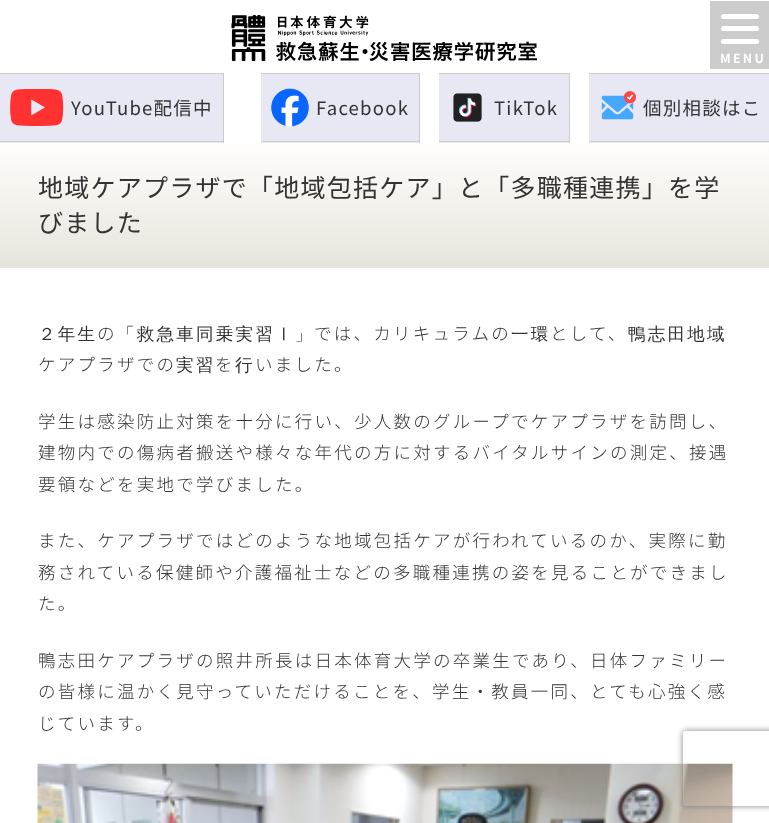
<svg xmlns="http://www.w3.org/2000/svg" width="769" height="823" viewBox="0 0 769 823">
  <defs>
    <linearGradient id="g1" gradientUnits="userSpaceOnUse" x1="385" y1="142" x2="385" y2="268"><stop offset="0" stop-color="rgb(254,253,250)"/><stop offset="1" stop-color="rgb(230,229,221)"/></linearGradient>
    <clipPath id="clip1"><path d="M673 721H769V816H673ZM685.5 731H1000.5C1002 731 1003 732 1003 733.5V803.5C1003 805 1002 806 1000.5 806H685.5C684 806 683 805 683 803.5V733.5C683 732 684 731 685.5 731Z" clip-rule="evenodd"/></clipPath>
  </defs>
  <rect width="100%" height="100%" fill="rgb(255,255,255)"/>
  <rect x="710" y="1" width="59" height="68" fill="rgb(204,204,204)"/>
  <rect x="721" y="14" width="38" height="5" rx="2.5" fill="rgb(255,255,255)"/>
  <rect x="721" y="26" width="38" height="5" rx="2.5" fill="rgb(255,255,255)"/>
  <rect x="721" y="39" width="38" height="5" rx="2.5" fill="rgb(255,255,255)"/>
  <text x="720" y="63" font-family="Noto Sans JP" font-size="12.5" font-weight="bold" letter-spacing="2.25" fill="rgb(255,255,255)">MENU</text>
  <image x="231" y="15" width="306" height="46" href="pic1.png"/>
  <rect x="0" y="74" width="223" height="69" fill="rgb(231,232,243)"/>
  <rect x="0" y="73" width="224" height="1" fill="rgb(204,204,204)"/>
  <rect x="223" y="73" width="1" height="70" fill="rgb(204,204,204)"/>
  <rect x="0" y="141" width="224" height="1" fill="rgb(204,204,204)"/>
  <image x="10" y="89" width="54" height="37" href="pic2.png"/>
  <text x="71" y="115" font-family="Noto Sans JP" font-size="18.5" letter-spacing="1.25" fill="rgb(51,51,51)">YouTube配信中</text>
  <rect x="261" y="74" width="158" height="69" fill="rgb(231,232,243)"/>
  <rect x="261" y="73" width="159" height="1" fill="rgb(204,204,204)"/>
  <rect x="419" y="73" width="1" height="70" fill="rgb(204,204,204)"/>
  <rect x="261" y="141" width="159" height="1" fill="rgb(204,204,204)"/>
  <image x="271" y="88" width="38" height="39" href="pic3.png"/>
  <text x="316" y="115" font-family="Noto Sans JP" font-size="18.5" letter-spacing="1.25" fill="rgb(51,51,51)">Facebook</text>
  <rect x="439" y="74" width="130" height="69" fill="rgb(231,232,243)"/>
  <rect x="439" y="73" width="131" height="1" fill="rgb(204,204,204)"/>
  <rect x="569" y="73" width="1" height="70" fill="rgb(204,204,204)"/>
  <rect x="439" y="141" width="131" height="1" fill="rgb(204,204,204)"/>
  <image x="453" y="93" width="29" height="29" href="pic4.png"/>
  <text x="494" y="115" font-family="Noto Sans JP" font-size="18.5" letter-spacing="1.25" fill="rgb(51,51,51)">TikTok</text>
  <rect x="589" y="74" width="180" height="69" fill="rgb(231,232,243)"/>
  <rect x="589" y="73" width="180" height="1" fill="rgb(204,204,204)"/>
  <rect x="589" y="141" width="180" height="1" fill="rgb(204,204,204)"/>
  <image x="601" y="91" width="35" height="29" href="pic5.png"/>
  <text x="643" y="115" font-family="Noto Sans JP" font-size="18.5" letter-spacing="1.25" fill="rgb(51,51,51)">個別相談はこ</text>
  <rect x="0" y="143" width="769" height="125" fill="url(#g1)"/>
  <g font-family="Noto Sans JP" font-size="25" letter-spacing="1.25" fill="rgb(51,51,51)">
    <text>
      <tspan x="38" y="197">地域ケアプラザで「地域包括ケア」と「多職種連携」を学</tspan>
      <tspan x="38" y="232">びました</tspan>
    </text>
  </g>
  <text x="38" y="340" font-family="WenQuanYi Zen Hei" font-size="17.5" font-weight="500" letter-spacing="2.25" fill="rgb(51,51,51)">２年生</text>
  <text x="97" y="340" font-family="Noto Sans JP" font-size="17.5" font-weight="300" letter-spacing="2.25" fill="rgb(51,51,51)">の</text>
  <text x="117" y="340" font-family="WenQuanYi Zen Hei" font-size="17.5" font-weight="500" letter-spacing="2.25" fill="rgb(51,51,51)">「救急車同乗実習Ⅰ」</text>
  <text x="314" y="340" font-family="Noto Sans JP" font-size="17.5" font-weight="300" letter-spacing="2.25" fill="rgb(51,51,51)">では、カリキュラムの</text>
  <text x="511" y="340" font-family="WenQuanYi Zen Hei" font-size="17.5" font-weight="500" letter-spacing="2.25" fill="rgb(51,51,51)">一環</text>
  <text x="550" y="340" font-family="Noto Sans JP" font-size="17.5" font-weight="300" letter-spacing="2.25" fill="rgb(51,51,51)">として、</text>
  <text x="628" y="340" font-family="WenQuanYi Zen Hei" font-size="17.5" font-weight="500" letter-spacing="2.25" fill="rgb(51,51,51)">鴨志田地域</text>
  <text x="38" y="371" font-family="Noto Sans JP" font-size="17.5" font-weight="300" letter-spacing="2.25" fill="rgb(51,51,51)">ケアプラザでの</text>
  <text x="176" y="371" font-family="WenQuanYi Zen Hei" font-size="17.5" font-weight="500" letter-spacing="2.25" fill="rgb(51,51,51)">実習</text>
  <text x="215" y="371" font-family="Noto Sans JP" font-size="17.5" font-weight="300" letter-spacing="2.25" fill="rgb(51,51,51)">を</text>
  <text x="235" y="371" font-family="WenQuanYi Zen Hei" font-size="17.5" font-weight="500" letter-spacing="2.25" fill="rgb(51,51,51)">行</text>
  <g font-family="Noto Sans JP" font-size="17.5" font-weight="300" letter-spacing="2.25" fill="rgb(51,51,51)">
    <text x="255" y="371">いました。</text>
    <text>
      <tspan x="38" y="428">学生は感染防止対策を十分に行い、少人数のグループでケアプラザを訪問し、</tspan>
      <tspan x="38" y="459">建物内での傷病者搬送や様々な年代の方に対するバイタルサインの測定、接遇</tspan>
      <tspan x="38" y="491">要領などを実地で学びました。</tspan>
    </text>
    <text>
      <tspan x="38" y="547">また、ケアプラザではどのような地域包括ケアが行われているのか、実際に勤</tspan>
      <tspan x="38" y="579">務されている保健師や介護福祉士などの多職種連携の姿を見ることができまし</tspan>
      <tspan x="38" y="610">た。</tspan>
    </text>
    <text>
      <tspan x="38" y="667">鴨志田ケアプラザの照井所長は日本体育大学の卒業生であり、日体ファミリー</tspan>
      <tspan x="38" y="698">の皆様に温かく見守っていただけることを、学生・教員一同、とても心強く感</tspan>
      <tspan x="38" y="730">じています。</tspan>
    </text>
  </g>
  <image x="37" y="763" width="696" height="60" href="pic6.png"/>
  <g clip-path="url(#clip1)">
    <rect x="683" y="731" width="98" height="75" rx="2.5" fill="rgb(128,128,128)" filter="blur(3px)"/>
  </g>
</svg>
